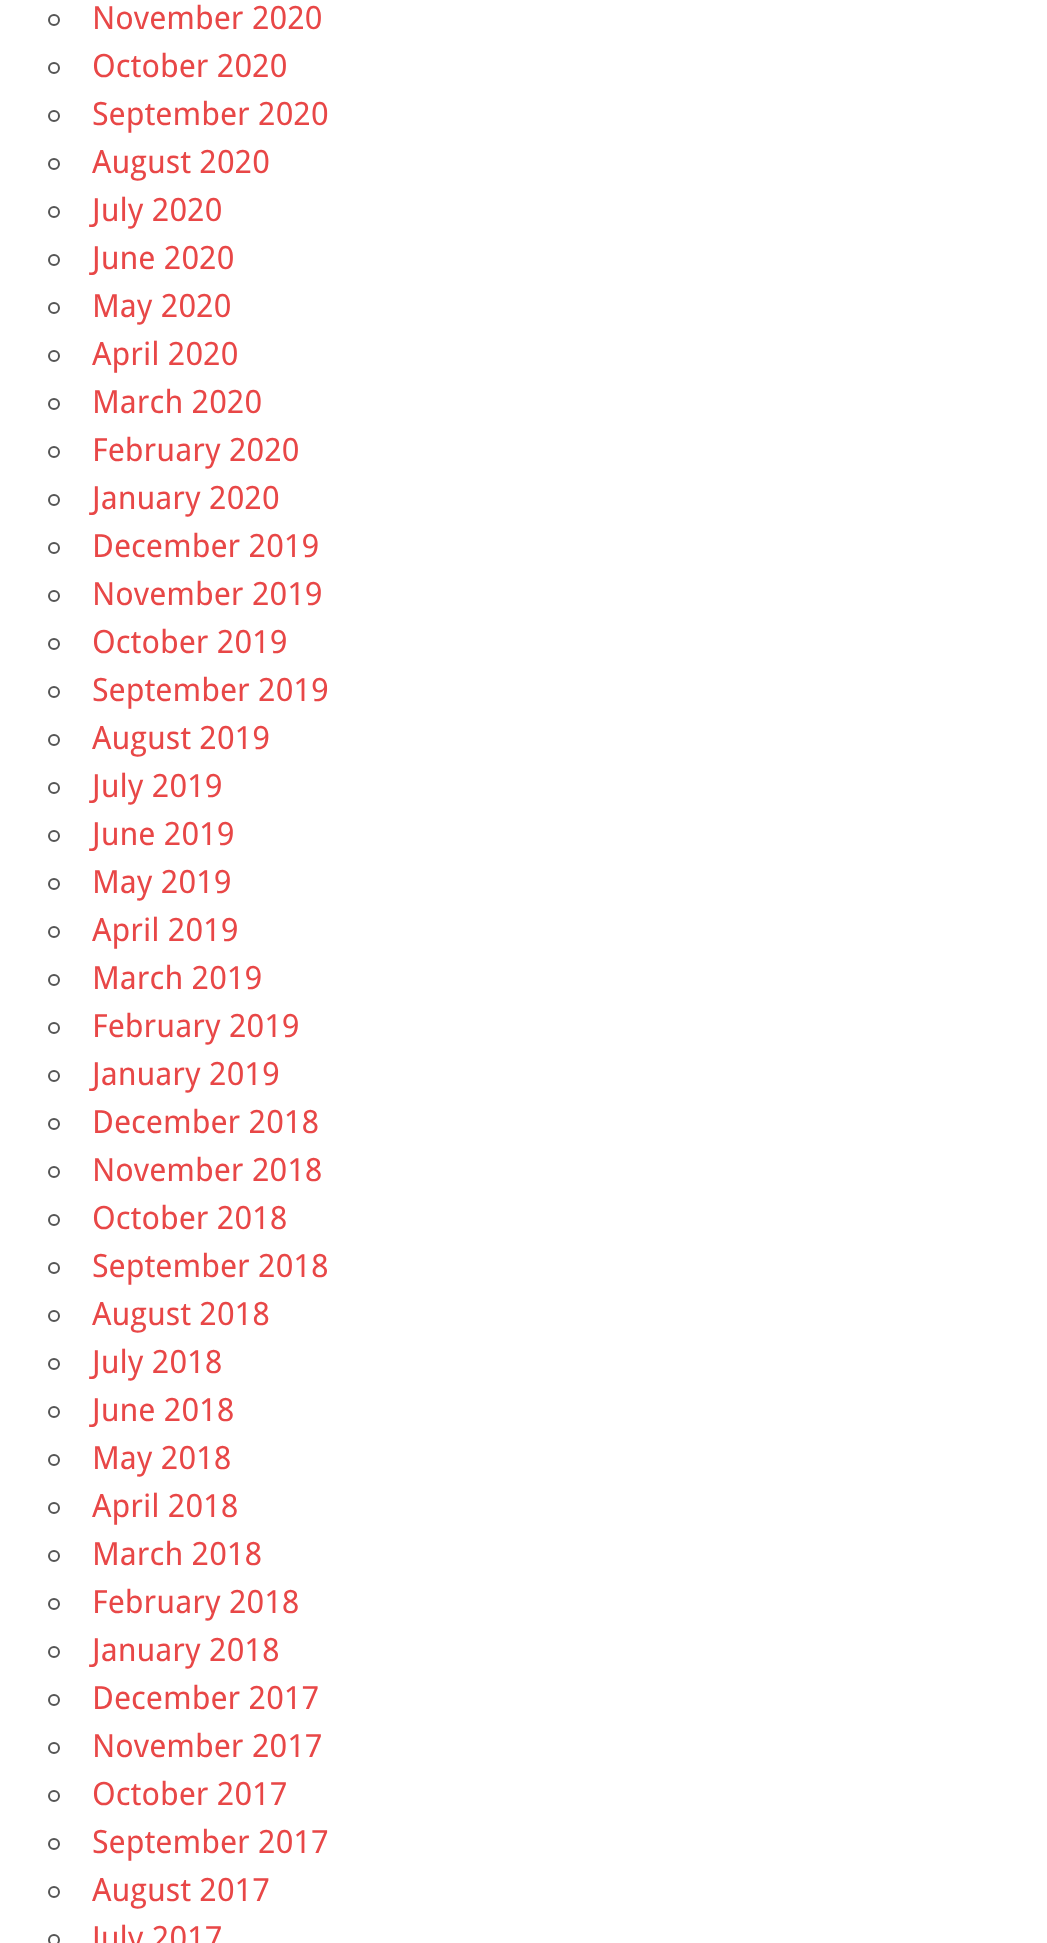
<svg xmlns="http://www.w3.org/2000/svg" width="1047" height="1943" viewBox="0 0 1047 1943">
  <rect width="100%" height="100%" fill="rgb(255,255,255)"/>
  <circle cx="54" cy="20" r="5" fill="none" stroke="rgb(85,85,85)" stroke-width="2"/>
  <text x="92" y="29" font-family="Droid Sans" font-size="32" fill="rgb(232,71,71)">November 2020</text>
  <circle cx="54" cy="68" r="5" fill="none" stroke="rgb(85,85,85)" stroke-width="2"/>
  <text x="92" y="77" font-family="Droid Sans" font-size="32" fill="rgb(232,71,71)">October 2020</text>
  <circle cx="54" cy="116" r="5" fill="none" stroke="rgb(85,85,85)" stroke-width="2"/>
  <text x="92" y="125" font-family="Droid Sans" font-size="32" fill="rgb(232,71,71)">September 2020</text>
  <circle cx="54" cy="164" r="5" fill="none" stroke="rgb(85,85,85)" stroke-width="2"/>
  <text x="92" y="173" font-family="Droid Sans" font-size="32" fill="rgb(232,71,71)">August 2020</text>
  <circle cx="54" cy="212" r="5" fill="none" stroke="rgb(85,85,85)" stroke-width="2"/>
  <text x="92" y="221" font-family="Droid Sans" font-size="32" fill="rgb(232,71,71)">July 2020</text>
  <circle cx="54" cy="260" r="5" fill="none" stroke="rgb(85,85,85)" stroke-width="2"/>
  <text x="92" y="269" font-family="Droid Sans" font-size="32" fill="rgb(232,71,71)">June 2020</text>
  <circle cx="54" cy="308" r="5" fill="none" stroke="rgb(85,85,85)" stroke-width="2"/>
  <text x="92" y="317" font-family="Droid Sans" font-size="32" fill="rgb(232,71,71)">May 2020</text>
  <circle cx="54" cy="356" r="5" fill="none" stroke="rgb(85,85,85)" stroke-width="2"/>
  <text x="92" y="365" font-family="Droid Sans" font-size="32" fill="rgb(232,71,71)">April 2020</text>
  <circle cx="54" cy="404" r="5" fill="none" stroke="rgb(85,85,85)" stroke-width="2"/>
  <text x="92" y="413" font-family="Droid Sans" font-size="32" fill="rgb(232,71,71)">March 2020</text>
  <circle cx="54" cy="452" r="5" fill="none" stroke="rgb(85,85,85)" stroke-width="2"/>
  <text x="92" y="461" font-family="Droid Sans" font-size="32" fill="rgb(232,71,71)">February 2020</text>
  <circle cx="54" cy="500" r="5" fill="none" stroke="rgb(85,85,85)" stroke-width="2"/>
  <text x="92" y="509" font-family="Droid Sans" font-size="32" fill="rgb(232,71,71)">January 2020</text>
  <circle cx="54" cy="548" r="5" fill="none" stroke="rgb(85,85,85)" stroke-width="2"/>
  <text x="92" y="557" font-family="Droid Sans" font-size="32" fill="rgb(232,71,71)">December 2019</text>
  <circle cx="54" cy="596" r="5" fill="none" stroke="rgb(85,85,85)" stroke-width="2"/>
  <text x="92" y="605" font-family="Droid Sans" font-size="32" fill="rgb(232,71,71)">November 2019</text>
  <circle cx="54" cy="644" r="5" fill="none" stroke="rgb(85,85,85)" stroke-width="2"/>
  <text x="92" y="653" font-family="Droid Sans" font-size="32" fill="rgb(232,71,71)">October 2019</text>
  <circle cx="54" cy="692" r="5" fill="none" stroke="rgb(85,85,85)" stroke-width="2"/>
  <text x="92" y="701" font-family="Droid Sans" font-size="32" fill="rgb(232,71,71)">September 2019</text>
  <circle cx="54" cy="740" r="5" fill="none" stroke="rgb(85,85,85)" stroke-width="2"/>
  <text x="92" y="749" font-family="Droid Sans" font-size="32" fill="rgb(232,71,71)">August 2019</text>
  <circle cx="54" cy="788" r="5" fill="none" stroke="rgb(85,85,85)" stroke-width="2"/>
  <text x="92" y="797" font-family="Droid Sans" font-size="32" fill="rgb(232,71,71)">July 2019</text>
  <circle cx="54" cy="836" r="5" fill="none" stroke="rgb(85,85,85)" stroke-width="2"/>
  <text x="92" y="845" font-family="Droid Sans" font-size="32" fill="rgb(232,71,71)">June 2019</text>
  <circle cx="54" cy="884" r="5" fill="none" stroke="rgb(85,85,85)" stroke-width="2"/>
  <text x="92" y="893" font-family="Droid Sans" font-size="32" fill="rgb(232,71,71)">May 2019</text>
  <circle cx="54" cy="932" r="5" fill="none" stroke="rgb(85,85,85)" stroke-width="2"/>
  <text x="92" y="941" font-family="Droid Sans" font-size="32" fill="rgb(232,71,71)">April 2019</text>
  <circle cx="54" cy="980" r="5" fill="none" stroke="rgb(85,85,85)" stroke-width="2"/>
  <text x="92" y="989" font-family="Droid Sans" font-size="32" fill="rgb(232,71,71)">March 2019</text>
  <circle cx="54" cy="1028" r="5" fill="none" stroke="rgb(85,85,85)" stroke-width="2"/>
  <text x="92" y="1037" font-family="Droid Sans" font-size="32" fill="rgb(232,71,71)">February 2019</text>
  <circle cx="54" cy="1076" r="5" fill="none" stroke="rgb(85,85,85)" stroke-width="2"/>
  <text x="92" y="1085" font-family="Droid Sans" font-size="32" fill="rgb(232,71,71)">January 2019</text>
  <circle cx="54" cy="1124" r="5" fill="none" stroke="rgb(85,85,85)" stroke-width="2"/>
  <text x="92" y="1133" font-family="Droid Sans" font-size="32" fill="rgb(232,71,71)">December 2018</text>
  <circle cx="54" cy="1172" r="5" fill="none" stroke="rgb(85,85,85)" stroke-width="2"/>
  <text x="92" y="1181" font-family="Droid Sans" font-size="32" fill="rgb(232,71,71)">November 2018</text>
  <circle cx="54" cy="1220" r="5" fill="none" stroke="rgb(85,85,85)" stroke-width="2"/>
  <text x="92" y="1229" font-family="Droid Sans" font-size="32" fill="rgb(232,71,71)">October 2018</text>
  <circle cx="54" cy="1268" r="5" fill="none" stroke="rgb(85,85,85)" stroke-width="2"/>
  <text x="92" y="1277" font-family="Droid Sans" font-size="32" fill="rgb(232,71,71)">September 2018</text>
  <circle cx="54" cy="1316" r="5" fill="none" stroke="rgb(85,85,85)" stroke-width="2"/>
  <text x="92" y="1325" font-family="Droid Sans" font-size="32" fill="rgb(232,71,71)">August 2018</text>
  <circle cx="54" cy="1364" r="5" fill="none" stroke="rgb(85,85,85)" stroke-width="2"/>
  <text x="92" y="1373" font-family="Droid Sans" font-size="32" fill="rgb(232,71,71)">July 2018</text>
  <circle cx="54" cy="1412" r="5" fill="none" stroke="rgb(85,85,85)" stroke-width="2"/>
  <text x="92" y="1421" font-family="Droid Sans" font-size="32" fill="rgb(232,71,71)">June 2018</text>
  <circle cx="54" cy="1460" r="5" fill="none" stroke="rgb(85,85,85)" stroke-width="2"/>
  <text x="92" y="1469" font-family="Droid Sans" font-size="32" fill="rgb(232,71,71)">May 2018</text>
  <circle cx="54" cy="1508" r="5" fill="none" stroke="rgb(85,85,85)" stroke-width="2"/>
  <text x="92" y="1517" font-family="Droid Sans" font-size="32" fill="rgb(232,71,71)">April 2018</text>
  <circle cx="54" cy="1556" r="5" fill="none" stroke="rgb(85,85,85)" stroke-width="2"/>
  <text x="92" y="1565" font-family="Droid Sans" font-size="32" fill="rgb(232,71,71)">March 2018</text>
  <circle cx="54" cy="1604" r="5" fill="none" stroke="rgb(85,85,85)" stroke-width="2"/>
  <text x="92" y="1613" font-family="Droid Sans" font-size="32" fill="rgb(232,71,71)">February 2018</text>
  <circle cx="54" cy="1652" r="5" fill="none" stroke="rgb(85,85,85)" stroke-width="2"/>
  <text x="92" y="1661" font-family="Droid Sans" font-size="32" fill="rgb(232,71,71)">January 2018</text>
  <circle cx="54" cy="1700" r="5" fill="none" stroke="rgb(85,85,85)" stroke-width="2"/>
  <text x="92" y="1709" font-family="Droid Sans" font-size="32" fill="rgb(232,71,71)">December 2017</text>
  <circle cx="54" cy="1748" r="5" fill="none" stroke="rgb(85,85,85)" stroke-width="2"/>
  <text x="92" y="1757" font-family="Droid Sans" font-size="32" fill="rgb(232,71,71)">November 2017</text>
  <circle cx="54" cy="1796" r="5" fill="none" stroke="rgb(85,85,85)" stroke-width="2"/>
  <text x="92" y="1805" font-family="Droid Sans" font-size="32" fill="rgb(232,71,71)">October 2017</text>
  <circle cx="54" cy="1844" r="5" fill="none" stroke="rgb(85,85,85)" stroke-width="2"/>
  <text x="92" y="1853" font-family="Droid Sans" font-size="32" fill="rgb(232,71,71)">September 2017</text>
  <circle cx="54" cy="1892" r="5" fill="none" stroke="rgb(85,85,85)" stroke-width="2"/>
  <text x="92" y="1901" font-family="Droid Sans" font-size="32" fill="rgb(232,71,71)">August 2017</text>
  <circle cx="54" cy="1940" r="5" fill="none" stroke="rgb(85,85,85)" stroke-width="2"/>
  <text x="92" y="1949" font-family="Droid Sans" font-size="32" fill="rgb(232,71,71)">July 2017</text>
</svg>
